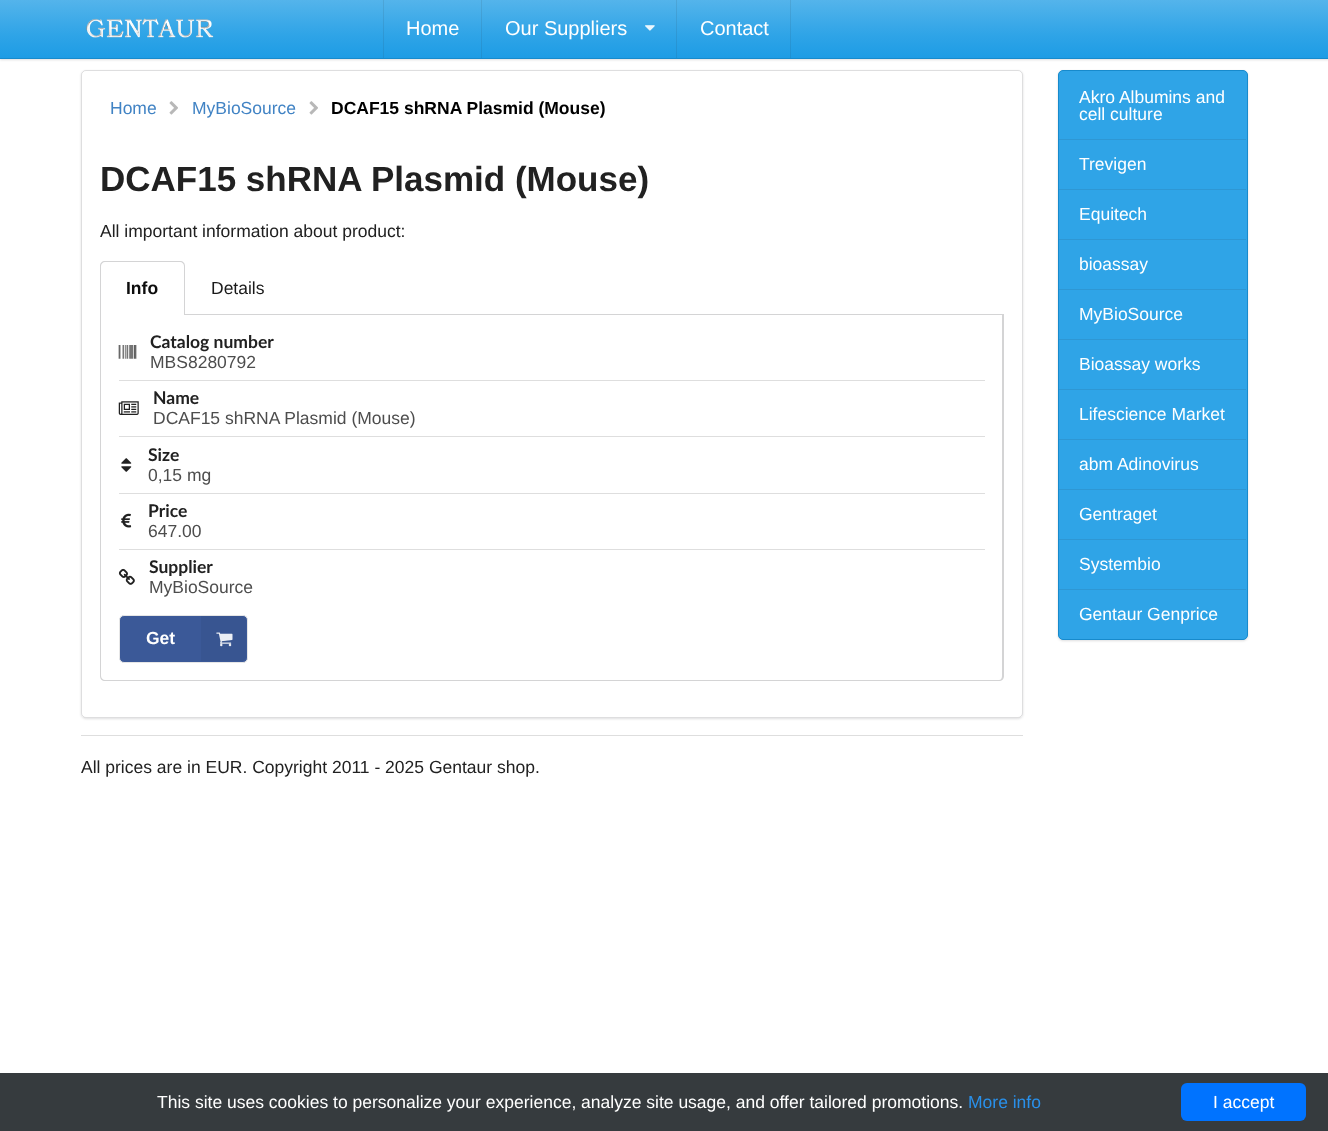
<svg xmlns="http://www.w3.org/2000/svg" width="1328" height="1131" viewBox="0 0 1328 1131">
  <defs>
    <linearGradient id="g1" gradientUnits="userSpaceOnUse" x1="664" y1="0" x2="664" y2="58"><stop offset="0" stop-color="rgb(84,180,235)"/><stop offset="0.6" stop-color="rgb(47,164,231)"/><stop offset="1" stop-color="rgb(29,156,229)"/></linearGradient>
    <linearGradient id="g2" gradientUnits="userSpaceOnUse" x1="664" y1="0" x2="664" y2="58"><stop offset="0" stop-color="rgb(79,166,215)"/><stop offset="0.6" stop-color="rgb(46,151,212)"/><stop offset="1" stop-color="rgb(30,144,210)"/></linearGradient>
  </defs>
  <rect width="100%" height="100%" fill="rgb(255,255,255)"/>
  <rect x="0" y="1" width="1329" height="59" fill="rgba(34,36,38,0.15)" filter="blur(1px)"/>
  <rect x="0" y="0" width="1328" height="58" fill="url(#g1)"/>
  <rect x="790" y="0" width="1" height="58" fill="url(#g2)"/>
  <rect x="676" y="0" width="1" height="58" fill="url(#g2)"/>
  <rect x="481" y="0" width="1" height="58" fill="url(#g2)"/>
  <rect x="383" y="0" width="1" height="58" fill="url(#g2)"/>
  <rect x="0" y="58" width="1328" height="1" fill="rgb(23,138,204)"/>
  <image x="86" y="18" width="128" height="20" href="pic1.png"/>
  <g font-family="Liberation Sans" font-size="20" fill="rgb(255,255,255)">
    <text x="406" y="35">Home</text>
    <text x="505" y="35">Our Suppliers</text>
  </g>
  <image x="645" y="25" width="10" height="6" href="pic2.png"/>
  <text x="700" y="35" font-family="Liberation Sans" font-size="20" fill="rgb(255,255,255)">Contact</text>
  <rect x="81" y="71" width="942" height="648" rx="5" fill="rgba(34,36,38,0.15)" filter="blur(1px)"/>
  <rect x="81" y="70" width="942" height="648" rx="5" fill="rgb(255,255,255)"/>
  <rect x="81.5" y="70.5" width="941" height="647" rx="4.5" fill="none" stroke="rgba(34,36,38,0.15)"/>
  <text x="110" y="114" font-family="Liberation Sans" font-size="17.5" fill="rgb(65,131,196)">Home</text>
  <image x="169" y="101" width="9" height="14" href="pic3.png"/>
  <text x="192" y="114" font-family="Liberation Sans" font-size="17.5" fill="rgb(65,131,196)">MyBioSource</text>
  <image x="309" y="101" width="9" height="14" href="pic3.png"/>
  <text x="331" y="114" font-family="Liberation Sans" font-size="17.5" font-weight="bold" fill="rgb(0,0,0)">DCAF15 shRNA Plasmid (Mouse)</text>
  <text x="100" y="191" font-family="Liberation Sans" font-size="35" font-weight="bold" fill="rgb(33,33,33)">DCAF15 shRNA Plasmid (Mouse)</text>
  <text x="100" y="237" font-family="Liberation Sans" font-size="17.5" fill="rgb(33,33,33)">All important information about product:</text>
  <rect x="185" y="314" width="819" height="1" fill="rgb(212,212,213)"/>
  <path d="M105 261H180C183 261 185 263 185 266V315H100V266C100 263 102 261 105 261ZM105 262H180C182 262 184 264 184 266V315H101V266C101 264 103 262 105 262Z" fill="rgb(212,212,213)" fill-rule="evenodd"/>
  <text x="126" y="294" font-family="Liberation Sans" font-size="17.5" font-weight="bold" fill="rgb(13,13,13)">Info</text>
  <text x="211" y="294" font-family="Liberation Sans" font-size="17.5" fill="rgb(26,26,26)">Details</text>
  <path d="M100 315H1004V676C1004 679 1002 681 999 681H105C102 681 100 679 100 676ZM101 315H1002V676C1002 678 1001 680 999 680H105C103 680 101 678 101 676Z" fill="rgb(212,212,213)" fill-rule="evenodd"/>
  <image x="118" y="345" width="19" height="14" href="pic4.png"/>
  <text x="150" y="348" font-family="Lato" font-size="17.5" font-weight="bold" fill="rgb(33,33,33)">Catalog number</text>
  <text x="150" y="368" font-family="Liberation Sans" font-size="17.5" fill="rgb(77,77,77)">MBS8280792</text>
  <rect x="119" y="380" width="866" height="1" fill="rgb(222,222,222)"/>
  <image x="118" y="401" width="21" height="14" href="pic5.png"/>
  <text x="153" y="404" font-family="Lato" font-size="17.5" font-weight="bold" fill="rgb(33,33,33)">Name</text>
  <text x="153" y="424" font-family="Liberation Sans" font-size="17.5" fill="rgb(77,77,77)">DCAF15 shRNA Plasmid (Mouse)</text>
  <rect x="119" y="436" width="866" height="1" fill="rgb(222,222,222)"/>
  <image x="121" y="458" width="11" height="14" href="pic6.png"/>
  <text x="148" y="461" font-family="Lato" font-size="17.5" font-weight="bold" fill="rgb(33,33,33)">Size</text>
  <text x="148" y="481" font-family="Liberation Sans" font-size="17.5" fill="rgb(77,77,77)">0,15 mg</text>
  <rect x="119" y="493" width="866" height="1" fill="rgb(222,222,222)"/>
  <image x="121" y="513" width="11" height="15" href="pic7.png"/>
  <text x="148" y="517" font-family="Lato" font-size="17.5" font-weight="bold" fill="rgb(33,33,33)">Price</text>
  <text x="148" y="537" font-family="Liberation Sans" font-size="17.5" fill="rgb(77,77,77)">647.00</text>
  <rect x="119" y="549" width="866" height="1" fill="rgb(222,222,222)"/>
  <image x="118" y="568" width="17" height="17" href="pic8.png"/>
  <text x="149" y="573" font-family="Lato" font-size="17.5" font-weight="bold" fill="rgb(33,33,33)">Supplier</text>
  <text x="149" y="593" font-family="Liberation Sans" font-size="17.5" fill="rgb(77,77,77)">MyBioSource</text>
  <rect x="119.5" y="615.5" width="128" height="47" rx="4.5" fill="rgb(59,89,152)" stroke="rgb(230,230,230)"/>
  <text x="146" y="644" font-family="Liberation Sans" font-size="17.5" font-weight="bold" fill="rgb(255,255,255)">Get</text>
  <path d="M201 616H241C244 616 246 618 246 621V656C246 659 244 661 241 661H201Z" fill="rgb(56,85,145)"/>
  <image x="216" y="632" width="17" height="15" href="pic9.png"/>
  <rect x="81" y="735" width="942" height="1" fill="rgb(222,222,222)"/>
  <text x="81" y="773" font-family="Liberation Sans" font-size="17.5" fill="rgb(33,33,33)">All prices are in EUR. Copyright 2011 - 2025 Gentaur shop.</text>
  <rect x="1058" y="71" width="190" height="570" rx="5" fill="rgba(34,36,38,0.15)" filter="blur(1px)"/>
  <rect x="1058.5" y="70.5" width="189" height="569" rx="4.5" fill="rgb(47,164,231)" stroke="rgb(23,138,204)"/>
  <g font-family="Liberation Sans" font-size="17.5" fill="rgb(255,255,255)">
    <text>
      <tspan x="1079" y="103">Akro Albumins and</tspan>
      <tspan x="1079" y="120">cell culture</tspan>
    </text>
  </g>
  <rect x="1059" y="139" width="187" height="1" fill="rgb(46,151,212)"/>
  <text x="1079" y="170" font-family="Liberation Sans" font-size="17.5" fill="rgb(255,255,255)">Trevigen</text>
  <rect x="1059" y="189" width="187" height="1" fill="rgb(46,151,212)"/>
  <text x="1079" y="220" font-family="Liberation Sans" font-size="17.5" fill="rgb(255,255,255)">Equitech</text>
  <rect x="1059" y="239" width="187" height="1" fill="rgb(46,151,212)"/>
  <text x="1079" y="270" font-family="Liberation Sans" font-size="17.5" fill="rgb(255,255,255)">bioassay</text>
  <rect x="1059" y="289" width="187" height="1" fill="rgb(46,151,212)"/>
  <text x="1079" y="320" font-family="Liberation Sans" font-size="17.5" fill="rgb(255,255,255)">MyBioSource</text>
  <rect x="1059" y="339" width="187" height="1" fill="rgb(46,151,212)"/>
  <text x="1079" y="370" font-family="Liberation Sans" font-size="17.5" fill="rgb(255,255,255)">Bioassay works</text>
  <rect x="1059" y="389" width="187" height="1" fill="rgb(46,151,212)"/>
  <text x="1079" y="420" font-family="Liberation Sans" font-size="17.5" fill="rgb(255,255,255)">Lifescience Market</text>
  <rect x="1059" y="439" width="187" height="1" fill="rgb(46,151,212)"/>
  <text x="1079" y="470" font-family="Liberation Sans" font-size="17.5" fill="rgb(255,255,255)">abm Adinovirus</text>
  <rect x="1059" y="489" width="187" height="1" fill="rgb(46,151,212)"/>
  <text x="1079" y="520" font-family="Liberation Sans" font-size="17.5" fill="rgb(255,255,255)">Gentraget</text>
  <rect x="1059" y="539" width="187" height="1" fill="rgb(46,151,212)"/>
  <text x="1079" y="570" font-family="Liberation Sans" font-size="17.5" fill="rgb(255,255,255)">Systembio</text>
  <rect x="1059" y="589" width="187" height="1" fill="rgb(46,151,212)"/>
  <text x="1079" y="620" font-family="Liberation Sans" font-size="17.5" fill="rgb(255,255,255)">Gentaur Genprice</text>
  <rect x="0" y="1073" width="1328" height="58" fill="rgb(54,59,62)"/>
  <text x="157" y="1108" font-family="Liberation Sans" font-size="17.5" fill="rgb(255,255,255)">This site uses cookies to personalize your experience, analyze site usage, and offer tailored promotions.</text>
  <text x="968" y="1108" font-family="Liberation Sans" font-size="17.5" fill="rgb(41,144,234)">More info</text>
  <rect x="1181" y="1083" width="125" height="38" rx="6" fill="rgb(0,115,255)"/>
  <text x="1213" y="1108" font-family="Liberation Sans" font-size="17.5" fill="rgb(255,255,255)">I accept</text>
</svg>
